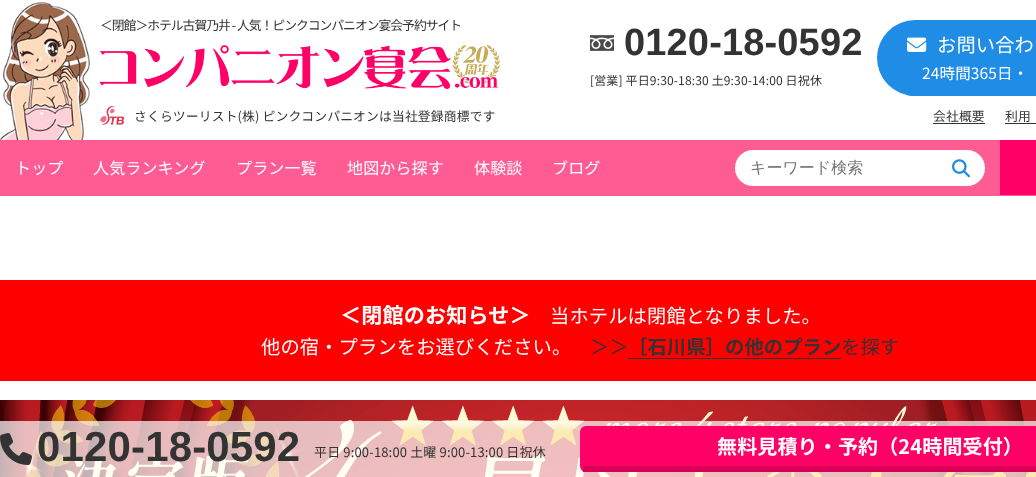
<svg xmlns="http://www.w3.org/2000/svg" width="1036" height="477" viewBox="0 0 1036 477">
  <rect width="100%" height="100%" fill="rgb(255,255,255)"/>
  <image x="0" y="2" width="90" height="138" href="pic1.png"/>
  <text x="100" y="30" font-family="Noto Sans JP" font-size="12.8" letter-spacing="-1" fill="rgb(51,51,51)">＜閉館＞ホテル古賀乃井 - 人気！ピンクコンパニオン宴会予約サイト</text>
  <image x="100" y="45" width="400" height="44" href="pic2.png"/>
  <image x="590" y="35" width="24" height="16" href="pic3.png"/>
  <text x="624" y="55" font-family="Liberation Sans" font-size="38" font-weight="bold" letter-spacing="0.15" fill="rgb(51,51,51)">0120-18-0592</text>
  <text x="590" y="85" font-family="Noto Sans JP" font-size="12" letter-spacing="0.15" fill="rgb(51,51,51)">[営業] 平日9:30-18:30 土9:30-14:00 日祝休</text>
  <rect x="877" y="20" width="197" height="76" rx="38" fill="rgb(31,140,230)"/>
  <image x="907" y="37" width="20" height="15" href="pic4.png"/>
  <text x="937" y="52" font-family="Noto Sans JP" font-size="19.25" letter-spacing="0.15" fill="rgb(255,255,255)">お問い合わ</text>
  <text x="922" y="79" font-family="Noto Sans JP" font-size="15.5" letter-spacing="0.15" fill="rgb(255,255,255)">24時間365日・</text>
  <image x="100" y="106" width="24" height="19" href="pic5.png"/>
  <g font-family="Noto Sans JP" font-size="12.8" letter-spacing="0.15" fill="rgb(51,51,51)">
    <text x="134" y="121">さくらツーリスト(株) ピンクコンパニオンは当社登録商標です</text>
    <text x="933" y="121">会社概要</text>
  </g>
  <rect x="933" y="123" width="52" height="1" fill="rgb(51,51,51)"/>
  <text x="1005" y="121" font-family="Noto Sans JP" font-size="12.8" letter-spacing="0.15" fill="rgb(51,51,51)">利用</text>
  <rect x="1005" y="123" width="31" height="1" fill="rgb(51,51,51)"/>
  <rect x="0" y="140" width="1036" height="56" fill="rgb(255,92,147)"/>
  <g font-family="Noto Sans JP" font-size="16" letter-spacing="0.15" fill="rgb(255,255,255)">
    <text x="15" y="174">トップ</text>
    <text x="93" y="174">人気ランキング</text>
    <text x="236" y="174">プラン一覧</text>
    <text x="347" y="174">地図から探す</text>
    <text x="474" y="174">体験談</text>
    <text x="552" y="174">ブログ</text>
  </g>
  <rect x="735" y="150" width="250" height="36" rx="18" fill="rgb(255,255,255)"/>
  <text x="750" y="173" font-family="WenQuanYi Zen Hei" font-size="16" font-weight="500" fill="rgb(117,117,117)">キーワード検索</text>
  <image x="952" y="159" width="18" height="19" href="pic6.png"/>
  <rect x="1000" y="140" width="36" height="55" fill="rgb(255,0,102)"/>
  <rect x="0" y="280" width="1036" height="101" fill="rgb(255,0,0)"/>
  <text x="340" y="323" font-family="Noto Sans JP" font-size="21.1" font-weight="bold" letter-spacing="0.15" fill="rgb(255,255,255)">＜閉館のお知らせ＞</text>
  <g font-family="Noto Sans JP" font-size="19.25" letter-spacing="0.15" fill="rgb(255,255,255)">
    <text x="550" y="323">当ホテルは閉館となりました。</text>
    <text x="261" y="354">他の宿・プランをお選びください。</text>
  </g>
  <text x="590" y="354" font-family="Noto Sans JP" font-size="19.25" letter-spacing="0.15" fill="rgb(51,51,51)">＞＞</text>
  <text x="628" y="354" font-family="Noto Sans JP" font-size="19.25" font-weight="bold" letter-spacing="0.15" fill="rgb(51,51,51)">［石川県］の他のプラン</text>
  <rect x="628" y="358" width="213" height="1" fill="rgb(51,51,51)"/>
  <text x="841" y="354" font-family="Noto Sans JP" font-size="19.25" letter-spacing="0.15" fill="rgb(51,51,51)">を探す</text>
  <image x="0" y="400" width="1036" height="77" href="pic7.png"/>
  <rect x="0" y="421" width="1036" height="56" fill="rgba(255,255,255,0.7)"/>
  <image x="0" y="433" width="32" height="32" href="pic8.png"/>
  <text x="37" y="461" font-family="Liberation Sans" font-size="42" font-weight="bold" letter-spacing="0.15" fill="rgb(51,51,51)">0120-18-0592</text>
  <text x="314" y="457" font-family="Noto Sans JP" font-size="13" letter-spacing="0.15" fill="rgb(51,51,51)">平日 9:00-18:00 土曜 9:00-13:00 日祝休</text>
  <rect x="580" y="426" width="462" height="46" rx="6" fill="rgb(255,0,102)"/>
  <rect x="583" y="466" width="453" height="6" fill="rgb(215,0,86)"/>
  <text x="717" y="454" font-family="Noto Sans JP" font-size="20" font-weight="bold" letter-spacing="0.15" fill="rgb(255,255,255)">無料見積り・予約（24時間受付）</text>
</svg>
